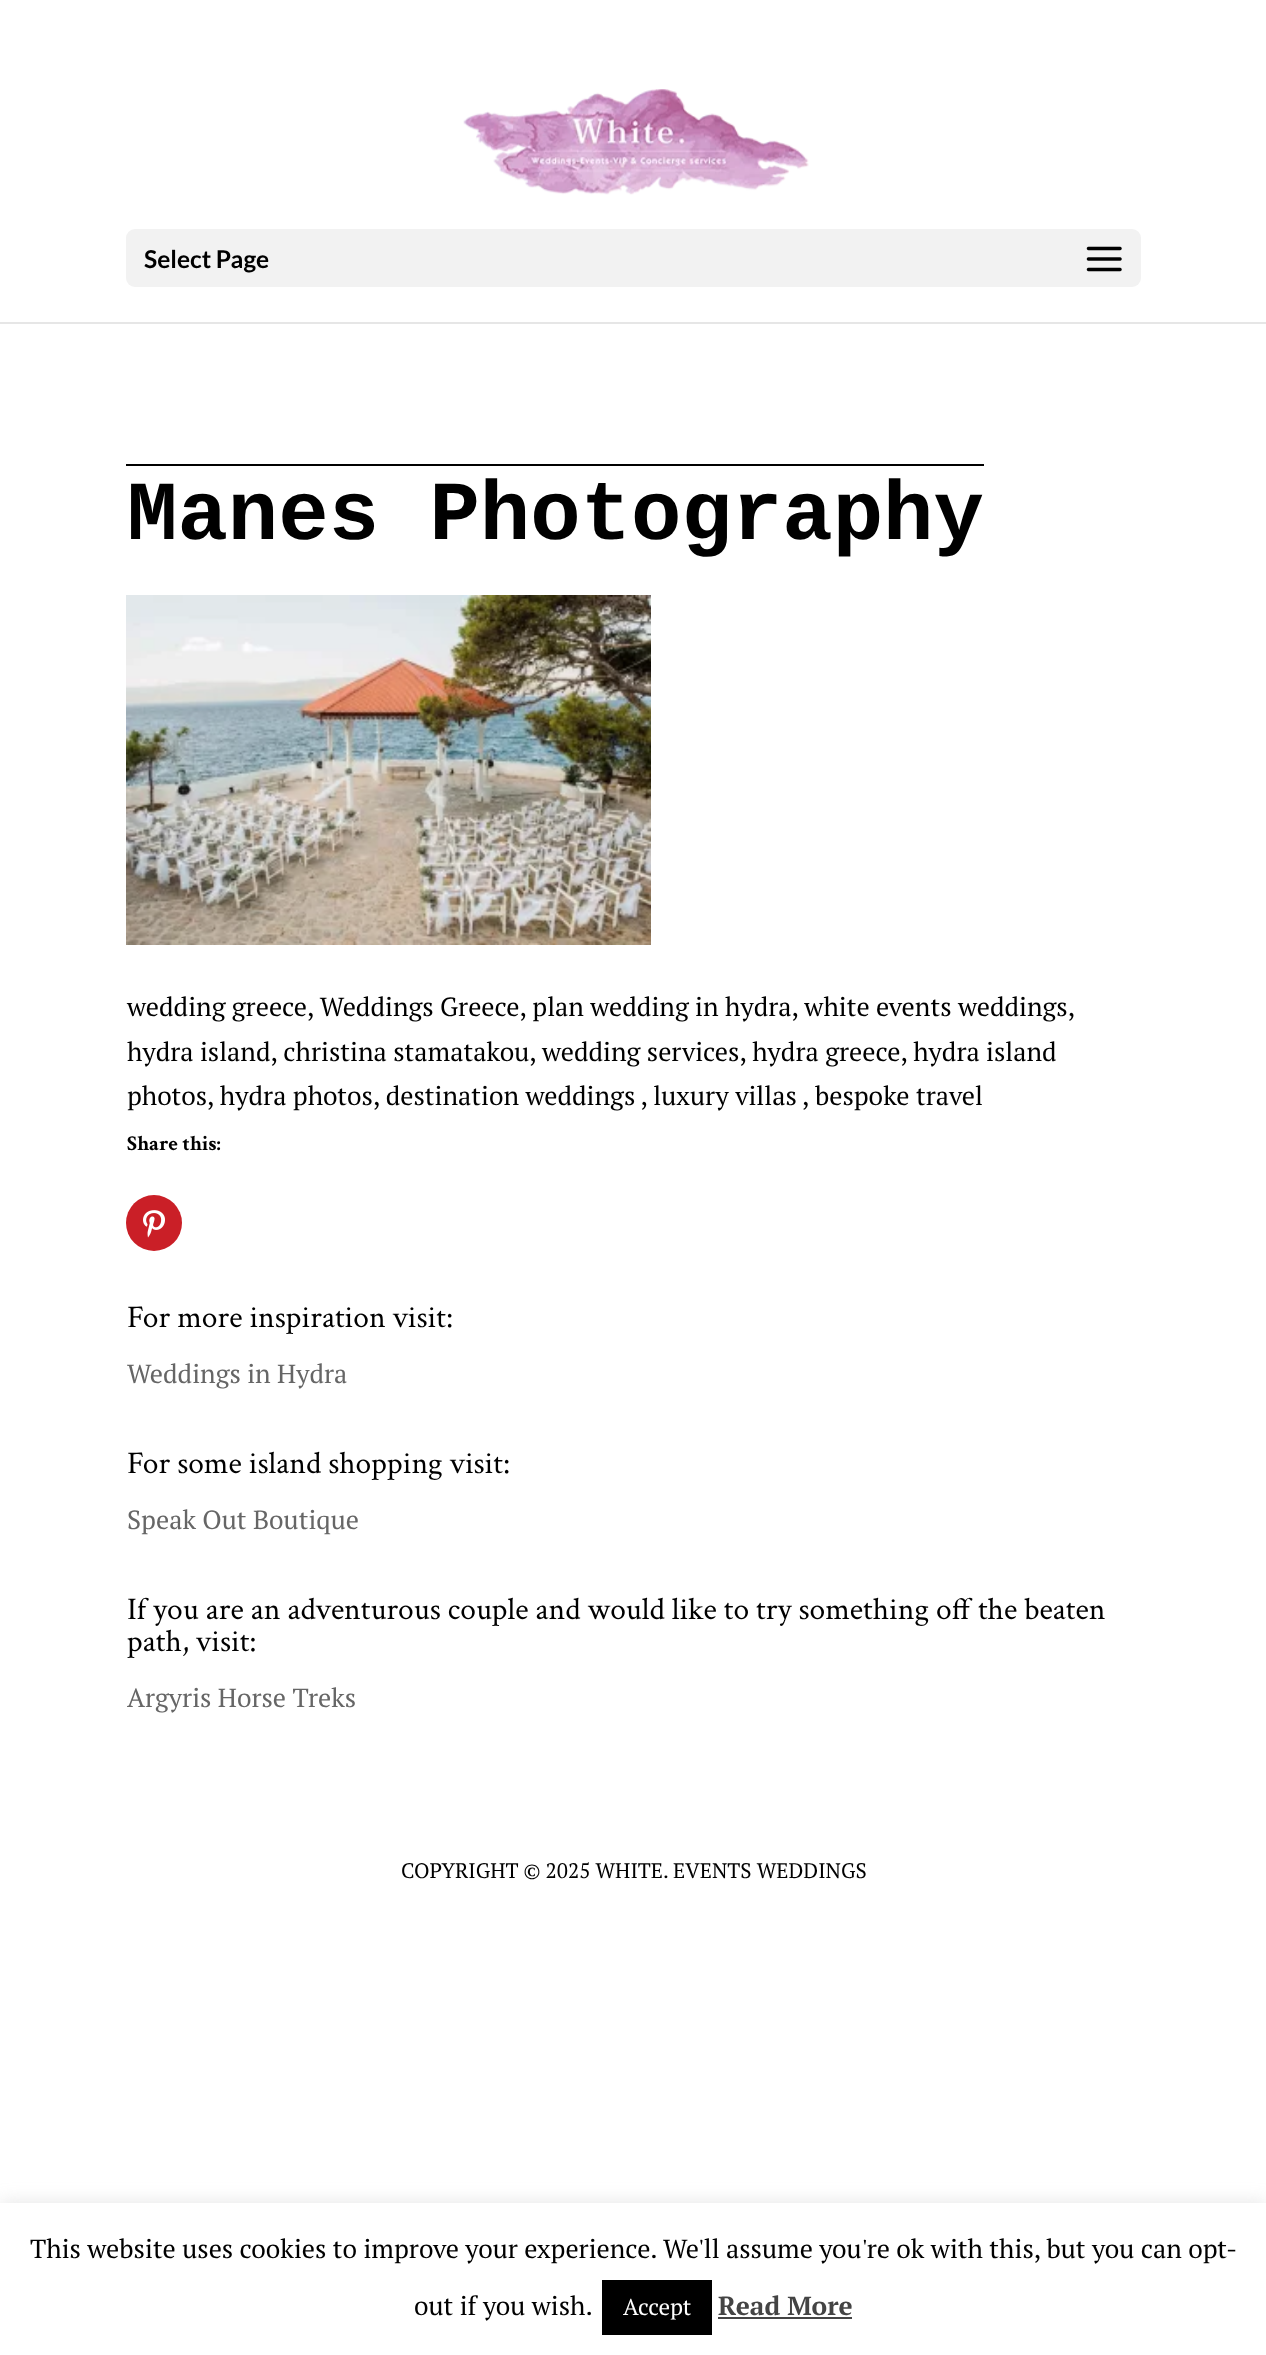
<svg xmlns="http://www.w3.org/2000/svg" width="1266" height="2355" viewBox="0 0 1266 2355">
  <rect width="100%" height="100%" fill="rgb(255,255,255)"/>
  <rect x="0" y="322" width="1266" height="2" fill="rgb(230,230,230)"/>
  <image x="463" y="89" width="346" height="106" href="pic1.png"/>
  <rect x="126" y="229" width="1015" height="58" rx="9" fill="rgb(242,242,242)"/>
  <text x="144" y="268" font-family="Lato" font-size="24.5" font-weight="bold" fill="rgb(0,0,0)">Select Page</text>
  <image x="1086" y="246" width="36" height="26" href="pic2.png"/>
  <rect x="126" y="464" width="858" height="2" fill="rgb(0,0,0)"/>
  <text x="127" y="539" font-family="Liberation Mono" font-size="84" font-weight="bold" fill="rgb(0,0,0)">Manes Photography</text>
  <image x="126" y="595" width="525" height="350" href="pic3.png"/>
  <g font-family="PT Serif" font-size="26.25" fill="rgb(0,0,0)">
    <text>
      <tspan x="127" y="1016">wedding greece, Weddings Greece, plan wedding in hydra, white events weddings,</tspan>
      <tspan x="127" y="1061">hydra island, christina stamatakou, wedding services, hydra greece, hydra island</tspan>
      <tspan x="127" y="1105">photos, hydra photos, destination weddings , luxury villas , bespoke travel</tspan>
    </text>
  </g>
  <text x="127" y="1150" font-family="Crimson Text" font-size="21" font-weight="bold" fill="rgb(0,0,0)">Share this:</text>
  <circle cx="154" cy="1223" r="28" fill="rgb(202,31,39)"/>
  <image x="143" y="1210" width="22" height="28" href="pic4.png"/>
  <text x="127" y="1327" font-family="Crimson Text" font-size="31.5" fill="rgb(0,0,0)">For more inspiration visit:</text>
  <text x="127" y="1383" font-family="PT Serif" font-size="26.25" fill="rgb(102,102,102)">Weddings in Hydra</text>
  <text x="127" y="1473" font-family="Crimson Text" font-size="31.5" fill="rgb(0,0,0)">For some island shopping visit:</text>
  <text x="127" y="1529" font-family="PT Serif" font-size="26.25" fill="rgb(102,102,102)">Speak Out Boutique</text>
  <g font-family="Crimson Text" font-size="31.5" fill="rgb(0,0,0)">
    <text>
      <tspan x="127" y="1619">If you are an adventurous couple and would like to try something off the beaten</tspan>
      <tspan x="127" y="1651">path, visit:</tspan>
    </text>
  </g>
  <text x="127" y="1707" font-family="PT Serif" font-size="26.25" fill="rgb(102,102,102)">Argyris Horse Treks</text>
  <text x="401" y="1878" font-family="PT Serif" font-size="21" fill="rgb(0,0,0)">COPYRIGHT © 2025 WHITE. EVENTS WEDDINGS</text>
  <rect x="0" y="2202" width="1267" height="152" fill="rgba(172,171,171,0.3)" filter="blur(9px)"/>
  <rect x="0" y="2203" width="1266" height="152" fill="rgb(255,255,255)"/>
  <g font-family="PT Serif" font-size="26.25" fill="rgb(0,0,0)">
    <text x="30" y="2258">This website uses cookies to improve your experience. We'll assume you're ok with this, but you can opt-</text>
    <text x="414" y="2315">out if you wish.</text>
  </g>
  <rect x="602" y="2280" width="110" height="55" fill="rgb(0,0,0)"/>
  <text x="623" y="2315" font-family="PT Serif" font-size="23" fill="rgb(255,255,255)">Accept</text>
  <text x="718" y="2315" font-family="PT Serif" font-size="26.25" font-weight="bold" fill="rgb(68,68,68)">Read More</text>
  <rect x="718" y="2317" width="134" height="2" fill="rgb(68,68,68)"/>
</svg>
